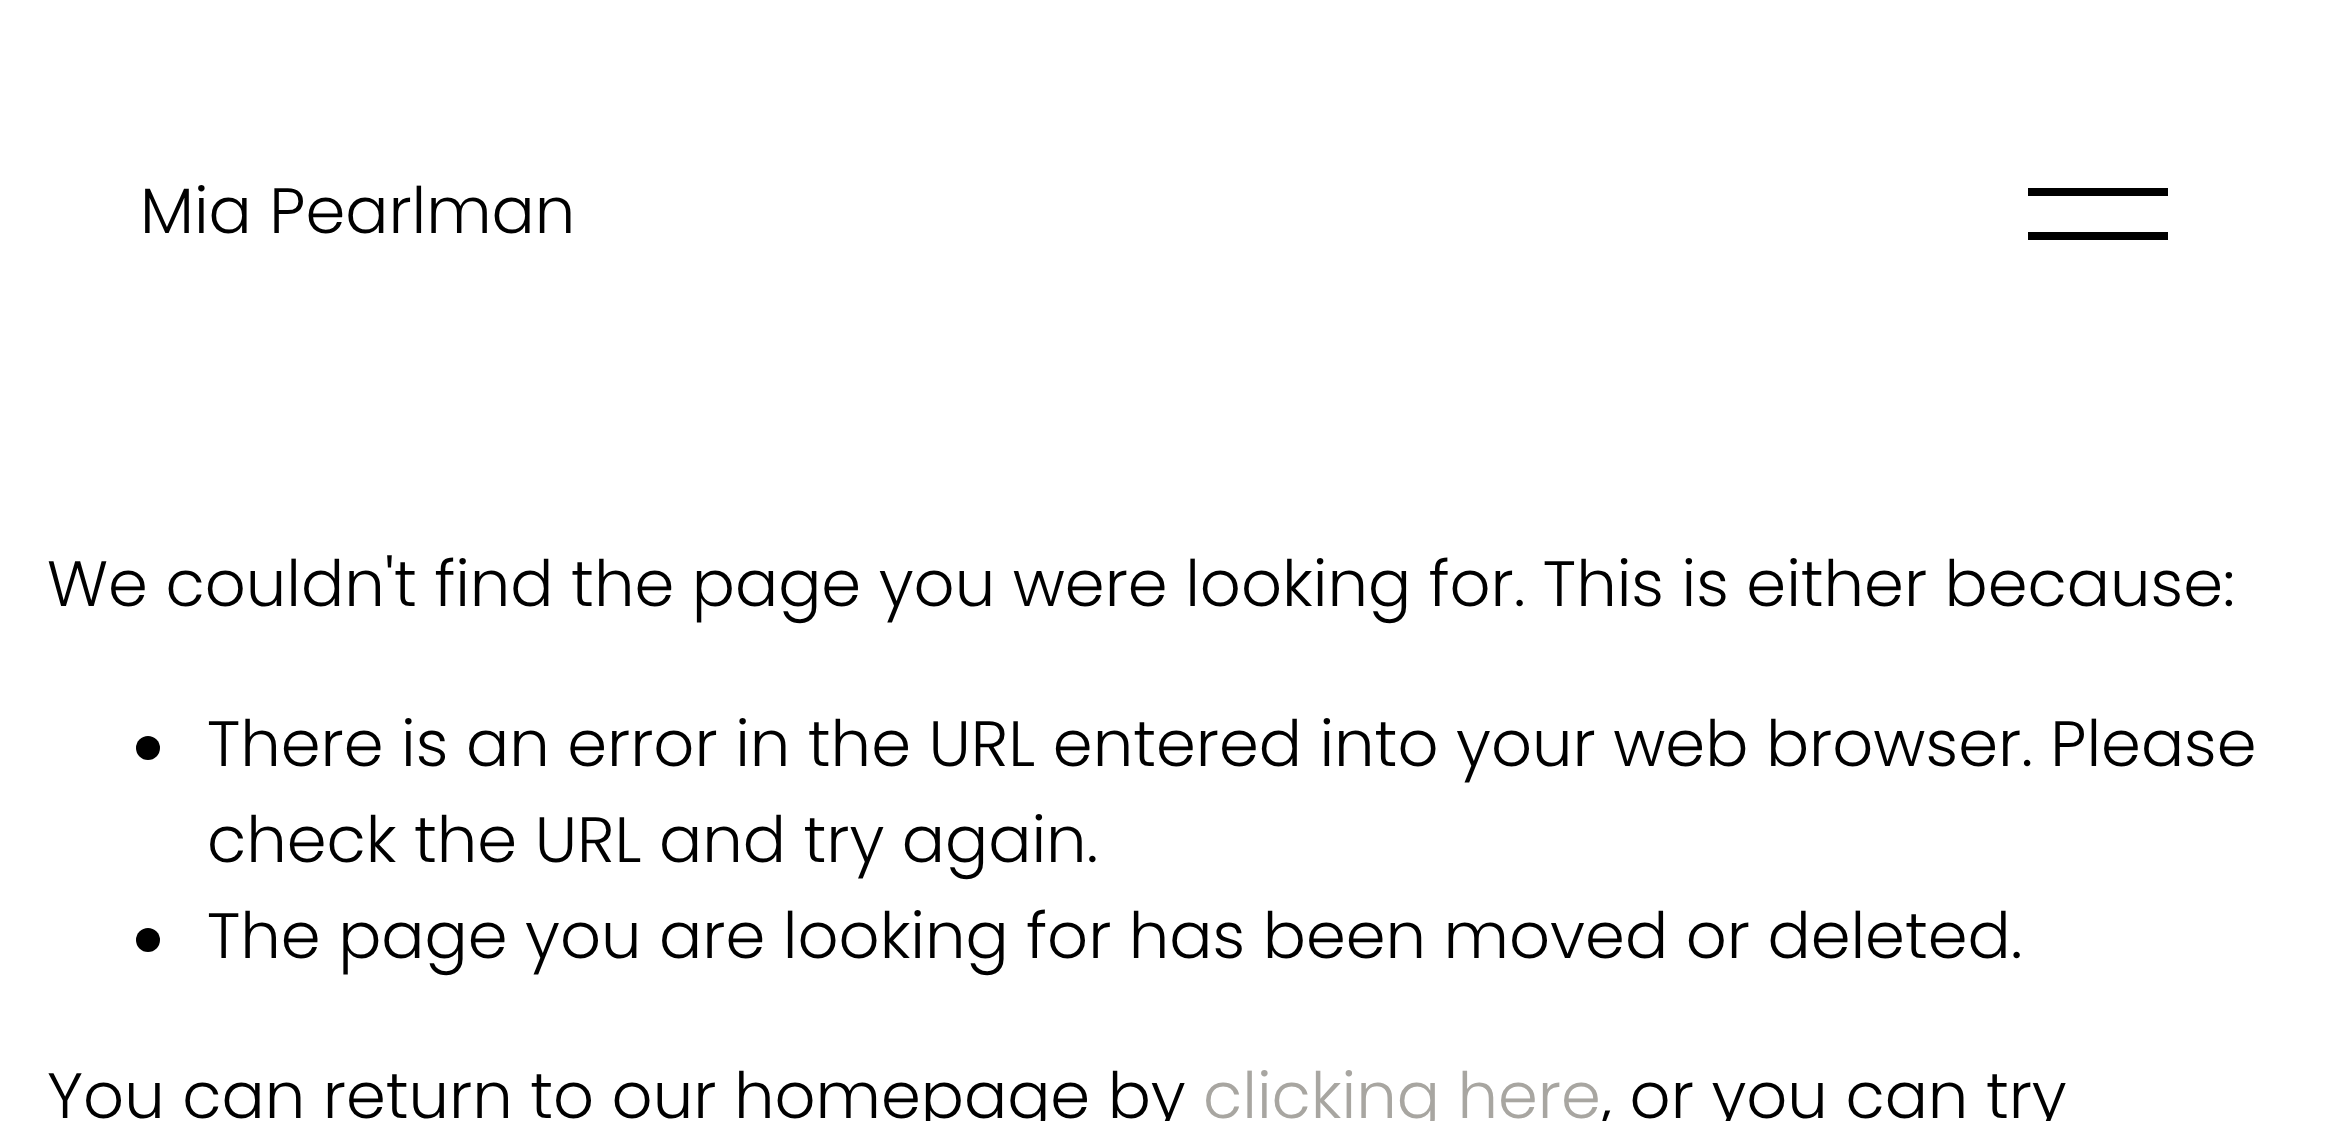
<svg xmlns="http://www.w3.org/2000/svg" width="2331" height="1121" viewBox="0 0 2331 1121">
  <rect width="100%" height="100%" fill="rgb(255,255,255)"/>
  <text x="140" y="233" font-family="Poppins" font-size="64" font-weight="300" fill="rgb(0,0,0)">Mia Pearlman</text>
  <rect x="2028" y="188" width="140" height="8" fill="rgb(0,0,0)"/>
  <rect x="2028" y="232" width="140" height="8" fill="rgb(0,0,0)"/>
  <text x="47" y="606" font-family="Poppins" font-size="64" font-weight="300" fill="rgb(0,0,0)">We couldn't find the page you were looking for. This is either because:</text>
  <circle cx="148" cy="748" r="12" fill="rgb(0,0,0)"/>
  <g font-family="Poppins" font-size="64" font-weight="300" fill="rgb(0,0,0)">
    <text>
      <tspan x="207" y="766">There is an error in the URL entered into your web browser. Please</tspan>
      <tspan x="207" y="862">check the URL and try again.</tspan>
    </text>
  </g>
  <circle cx="148" cy="940" r="12" fill="rgb(0,0,0)"/>
  <g font-family="Poppins" font-size="64" font-weight="300" fill="rgb(0,0,0)">
    <text x="207" y="958">The page you are looking for has been moved or deleted.</text>
    <text x="47" y="1118">You can return to our homepage by</text>
  </g>
  <text x="1203" y="1118" font-family="Poppins" font-size="64" font-weight="300" fill="rgb(168,166,161)">clicking here</text>
  <text x="1601" y="1118" font-family="Poppins" font-size="64" font-weight="300" fill="rgb(0,0,0)">, or you can try</text>
</svg>
